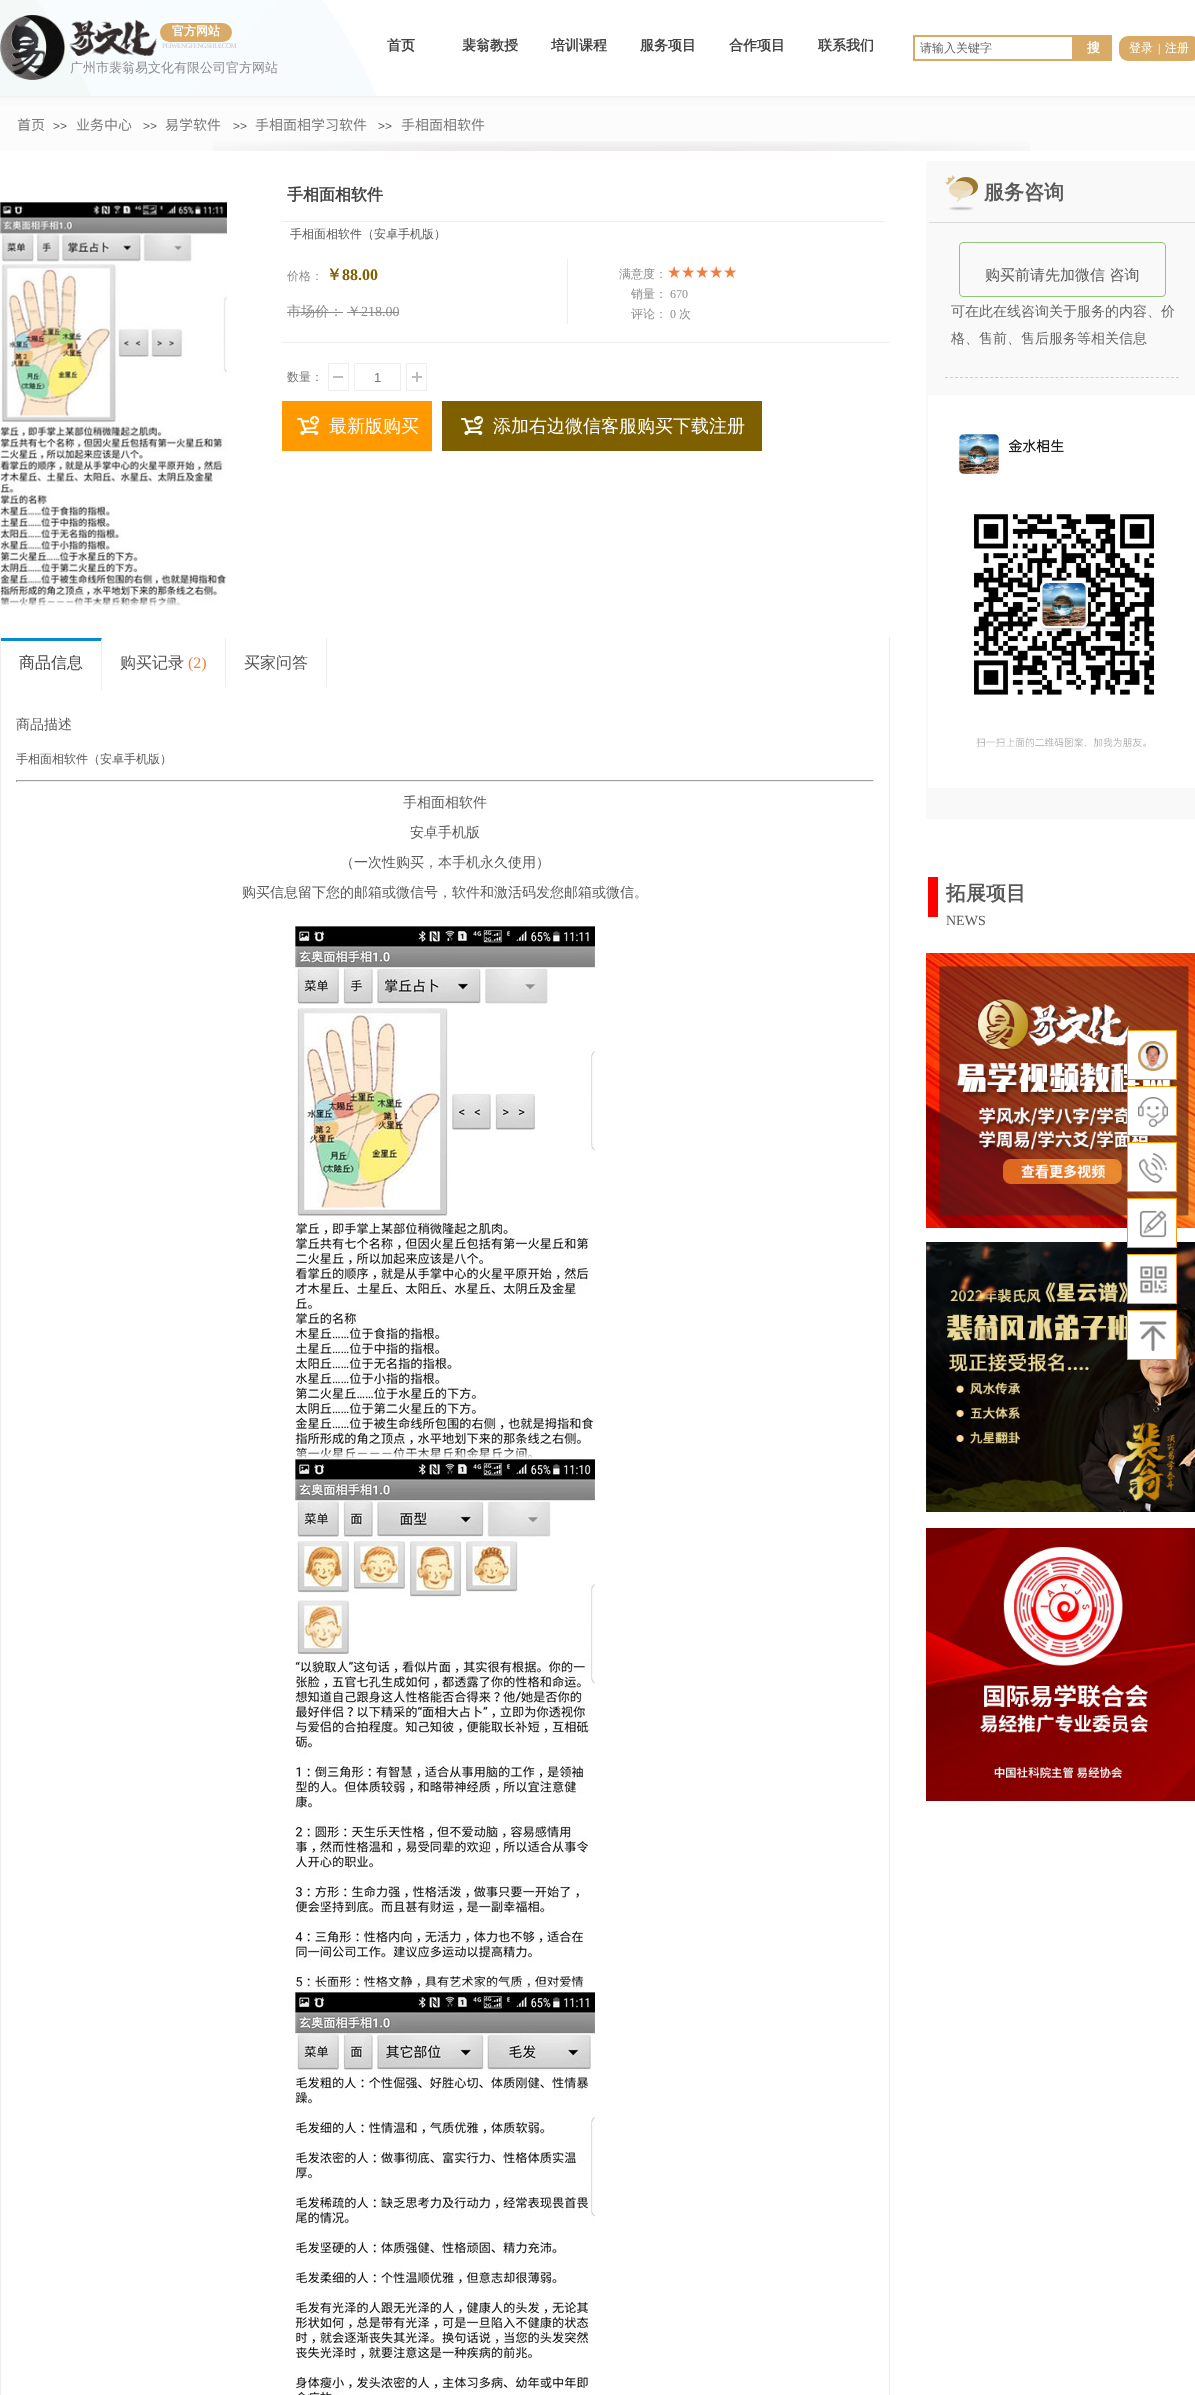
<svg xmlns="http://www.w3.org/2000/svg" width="1195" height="2395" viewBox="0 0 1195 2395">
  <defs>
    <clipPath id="clip1"><rect x="1" y="637" width="888" height="53"/></clipPath>
  </defs>
  <rect width="100%" height="100%" fill="rgb(255,255,255)"/>
  <image x="0" y="0" width="376" height="96" href="pic1.png"/>
  <image x="0" y="15" width="65" height="65" href="pic2.png"/>
  <image x="69" y="20" width="88" height="36" href="pic3.png"/>
  <rect x="160" y="23" width="72" height="19" rx="9.5" fill="rgb(217,171,102)"/>
  <text x="172" y="35" font-family="WenQuanYi Zen Hei" font-size="12" font-weight="bold" fill="rgb(255,255,255)">官方网站</text>
  <text x="162" y="48" font-family="Liberation Serif" font-size="7" letter-spacing="-0.5" fill="rgb(199,199,199)">PEIWENGFENGSHUI.COM</text>
  <g font-family="WenQuanYi Zen Hei" font-size="14" font-weight="bold" fill="rgb(67,67,67)">
    <text x="387" y="50">首页</text>
    <text x="462" y="50">裴翁教授</text>
    <text x="551" y="50">培训课程</text>
    <text x="640" y="50">服务项目</text>
    <text x="729" y="50">合作项目</text>
    <text x="818" y="50">联系我们</text>
  </g>
  <rect x="914" y="36" width="159" height="24" fill="none" stroke="rgb(217,171,102)" stroke-width="2"/>
  <text x="920" y="52" font-family="WenQuanYi Zen Hei" font-size="12" font-weight="500" fill="rgb(102,102,102)">请输入关键字</text>
  <rect x="1074" y="35" width="38" height="26" fill="rgb(217,171,102)"/>
  <text x="1087" y="52" font-family="WenQuanYi Zen Hei" font-size="13" font-weight="bold" fill="rgb(255,255,255)">搜</text>
  <rect x="1119" y="36" width="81" height="25" rx="9" fill="rgb(217,171,102)"/>
  <text x="1129" y="52" font-family="WenQuanYi Zen Hei" font-size="12" font-weight="500" fill="rgb(255,255,255)">登录</text>
  <text x="1158" y="52" font-family="Liberation Serif" font-size="12" fill="rgb(255,255,255)">|</text>
  <text x="1165" y="52" font-family="WenQuanYi Zen Hei" font-size="12" font-weight="500" fill="rgb(255,255,255)">注册</text>
  <text x="70" y="72" font-family="WenQuanYi Zen Hei" font-size="13" font-weight="500" fill="rgb(141,141,141)">广州市裴翁易文化有限公司官方网站</text>
  <image x="0" y="96" width="1195" height="9" href="pic4.png"/>
  <rect x="0" y="97" width="1195" height="54" fill="rgba(249,249,249,0.56)"/>
  <image x="213" y="141" width="817" height="10" href="pic5.png"/>
  <text x="17" y="130" font-family="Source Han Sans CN" font-size="14" fill="rgb(122,122,122)">首页</text>
  <text x="53" y="130" font-family="Liberation Sans" font-size="12" fill="rgb(90,90,90)">&gt;&gt;</text>
  <text x="76" y="130" font-family="Source Han Sans CN" font-size="14" fill="rgb(122,122,122)">业务中心</text>
  <text x="143" y="130" font-family="Liberation Sans" font-size="12" fill="rgb(90,90,90)">&gt;&gt;</text>
  <text x="165" y="130" font-family="Source Han Sans CN" font-size="14" fill="rgb(122,122,122)">易学软件</text>
  <text x="233" y="130" font-family="Liberation Sans" font-size="12" fill="rgb(90,90,90)">&gt;&gt;</text>
  <text x="255" y="130" font-family="Source Han Sans CN" font-size="14" fill="rgb(122,122,122)">手相面相学习软件</text>
  <text x="378" y="130" font-family="Liberation Sans" font-size="12" fill="rgb(90,90,90)">&gt;&gt;</text>
  <text x="401" y="130" font-family="Source Han Sans CN" font-size="14" fill="rgb(122,122,122)">手相面相软件</text>
  <image x="0" y="202" width="227" height="404" href="pic6.png"/>
  <rect x="282" y="221" width="603" height="1" fill="rgb(238,238,238)"/>
  <text x="287" y="200" font-family="WenQuanYi Zen Hei" font-size="16" font-weight="bold" fill="rgb(67,67,67)">手相面相软件</text>
  <text x="290" y="238" font-family="WenQuanYi Zen Hei" font-size="12" font-weight="500" fill="rgb(90,90,90)">手相面相软件（安卓手机版）</text>
  <rect x="282" y="342" width="608" height="1" fill="rgb(238,238,238)"/>
  <text x="287" y="280" font-family="WenQuanYi Zen Hei" font-size="12" font-weight="500" fill="rgb(141,141,141)">价格：</text>
  <text x="326" y="280" font-family="WenQuanYi Zen Hei" font-size="16" font-weight="bold" fill="rgb(127,96,0)">￥</text>
  <text x="342" y="280" font-family="Liberation Serif" font-size="16" font-weight="bold" fill="rgb(127,96,0)">88.00</text>
  <text x="287" y="316" font-family="WenQuanYi Zen Hei" font-size="14" font-weight="500" fill="rgb(141,141,141)">市场价：</text>
  <rect x="287" y="312" width="56" height="1" fill="rgb(137,137,137)"/>
  <text x="347" y="316" font-family="WenQuanYi Zen Hei" font-size="14" font-weight="500" fill="rgb(141,141,141)">￥</text>
  <text x="361" y="316" font-family="Liberation Serif" font-size="14" fill="rgb(141,141,141)">218.00</text>
  <rect x="347" y="312" width="52" height="1" fill="rgb(137,137,137)"/>
  <rect x="567" y="259" width="1" height="65" fill="rgb(238,238,238)"/>
  <text x="619" y="278" font-family="WenQuanYi Zen Hei" font-size="12" font-weight="500" fill="rgb(141,141,141)">满意度：</text>
  <image x="668" y="266" width="12" height="12" href="pic7.png"/>
  <image x="682" y="266" width="12" height="12" href="pic7.png"/>
  <image x="696" y="266" width="12" height="12" href="pic7.png"/>
  <image x="710" y="266" width="12" height="12" href="pic7.png"/>
  <image x="724" y="266" width="12" height="12" href="pic7.png"/>
  <text x="631" y="298" font-family="WenQuanYi Zen Hei" font-size="12" font-weight="500" fill="rgb(141,141,141)">销量：</text>
  <text x="670" y="298" font-family="Liberation Serif" font-size="12" fill="rgb(141,141,141)">670</text>
  <text x="631" y="318" font-family="WenQuanYi Zen Hei" font-size="12" font-weight="500" fill="rgb(141,141,141)">评论：</text>
  <text x="670" y="318" font-family="Liberation Serif" font-size="12" fill="rgb(141,141,141)">0</text>
  <text x="679" y="318" font-family="WenQuanYi Zen Hei" font-size="12" font-weight="500" fill="rgb(141,141,141)">次</text>
  <text x="287" y="381" font-family="WenQuanYi Zen Hei" font-size="12" font-weight="500" fill="rgb(122,122,122)">数量：</text>
  <rect x="333" y="376" width="10" height="2" fill="rgb(188,188,188)"/>
  <rect x="328.5" y="363.5" width="20" height="27" fill="none" stroke="rgb(238,238,238)"/>
  <rect x="354.5" y="363.5" width="46" height="27" fill="none" stroke="rgb(238,238,238)"/>
  <text x="374" y="382" font-family="Liberation Sans" font-size="13" fill="rgb(122,122,122)">1</text>
  <image x="412" y="372" width="10" height="10" href="pic8.png"/>
  <rect x="406.5" y="363.5" width="20" height="27" fill="none" stroke="rgb(238,238,238)"/>
  <rect x="282" y="401" width="150" height="50" fill="rgb(255,153,0)"/>
  <image x="297" y="416" width="22" height="19" href="pic9.png"/>
  <text x="329" y="432" font-family="WenQuanYi Zen Hei" font-size="18" font-weight="500" fill="rgb(255,255,255)">最新版购买</text>
  <rect x="442" y="401" width="320" height="50" fill="rgb(127,96,0)"/>
  <image x="461" y="416" width="22" height="19" href="pic10.png"/>
  <text x="493" y="432" font-family="WenQuanYi Zen Hei" font-size="18" font-weight="500" fill="rgb(255,255,255)">添加右边微信客服购买下载注册</text>
  <rect x="889" y="637" width="1" height="1758" fill="rgb(238,238,238)"/>
  <rect x="0" y="637" width="1" height="1758" fill="rgb(238,238,238)"/>
  <path d="M1 638H102L101 641H1Z" fill="rgb(4,139,205)"/>
  <g clip-path="url(#clip1)">
    <path d="M102 638V693H101V641Z" fill="rgb(238,238,238)"/>
  </g>
  <text x="19" y="668" font-family="WenQuanYi Zen Hei" font-size="16" font-weight="500" fill="rgb(67,67,67)">商品信息</text>
  <rect x="225" y="638" width="1" height="49" fill="rgb(238,238,238)"/>
  <text x="120" y="668" font-family="WenQuanYi Zen Hei" font-size="16" font-weight="500" fill="rgb(83,83,83)">购买记录</text>
  <text x="188" y="668" font-family="Liberation Serif" font-size="16" fill="rgb(238,125,66)">(2)</text>
  <rect x="326" y="638" width="1" height="49" fill="rgb(238,238,238)"/>
  <text x="244" y="668" font-family="WenQuanYi Zen Hei" font-size="16" font-weight="500" fill="rgb(83,83,83)">买家问答</text>
  <text x="16" y="729" font-family="WenQuanYi Zen Hei" font-size="14" font-weight="500" fill="rgb(90,90,90)">商品描述</text>
  <text x="16" y="763" font-family="WenQuanYi Zen Hei" font-size="12" font-weight="500" fill="rgb(90,90,90)">手相面相软件（安卓手机版）</text>
  <rect x="16" y="780" width="858" height="1" fill="rgb(159,159,159)"/>
  <rect x="873" y="780" width="1" height="2" fill="rgb(238,238,238)"/>
  <rect x="16" y="781" width="858" height="1" fill="rgb(238,238,238)"/>
  <rect x="16" y="780" width="1" height="2" fill="rgb(159,159,159)"/>
  <g font-family="WenQuanYi Zen Hei" font-size="14" font-weight="500" fill="rgb(90,90,90)">
    <text x="403" y="807">手相面相软件</text>
    <text x="410" y="837">安卓手机版</text>
    <text x="340" y="867">（一次性购买，本手机永久使用）</text>
    <text x="242" y="897">购买信息留下您的邮箱或微信号，软件和激活码发您邮箱或微信。</text>
  </g>
  <image x="295" y="926" width="300" height="533" href="pic11.png"/>
  <image x="295" y="1459" width="300" height="532" href="pic12.png"/>
  <image x="295" y="1992" width="300" height="403" href="pic13.png"/>
  <rect x="928" y="877" width="10" height="40" fill="rgb(255,0,0)"/>
  <rect x="926" y="161" width="269" height="658" fill="rgb(249,249,249)"/>
  <image x="945" y="175" width="33" height="36" href="pic14.png"/>
  <rect x="929" y="222" width="266" height="1" fill="rgb(217,217,217)"/>
  <text x="984" y="199" font-family="WenQuanYi Zen Hei" font-size="20" font-weight="bold" fill="rgb(90,90,90)">服务咨询</text>
  <rect x="959.5" y="242.5" width="206" height="54" rx="3.5" fill="none" stroke="rgb(147,196,125)"/>
  <g font-family="WenQuanYi Zen Hei" font-size="15" font-weight="500" fill="rgb(90,90,90)">
    <text x="985" y="280">购买前</text>
    <text x="1030" y="280">请先加微信 咨询</text>
  </g>
  <g font-family="WenQuanYi Zen Hei" font-size="14" font-weight="500" fill="rgb(102,102,102)">
    <text>
      <tspan x="951" y="316">可在此在线咨询关于服务的内容、价</tspan>
      <tspan x="951" y="343">格、售前、售后服务等相关信息</tspan>
    </text>
  </g>
  <path d="M945 377.5H1179" fill="none" stroke="rgb(204,204,204)" stroke-dasharray="3 2.02"/>
  <image x="928" y="395" width="267" height="393" href="pic15.png"/>
  <text x="946" y="900" font-family="WenQuanYi Zen Hei" font-size="20" font-weight="bold" fill="rgb(90,90,90)">拓展项目</text>
  <text x="946" y="925" font-family="Liberation Serif" font-size="14" fill="rgb(90,90,90)">NEWS</text>
  <image x="926" y="953" width="269" height="275" href="pic16.png"/>
  <image x="926" y="1242" width="269" height="270" href="pic17.png"/>
  <image x="926" y="1528" width="269" height="273" href="pic18.png"/>
  <rect x="1127.5" y="1030.5" width="49" height="49" fill="rgb(255,255,255)" stroke="rgb(255,153,0)"/>
  <image x="1138" y="1041" width="30" height="30" href="pic19.png"/>
  <rect x="1127.5" y="1086.5" width="49" height="49" fill="rgb(255,255,255)" stroke="rgb(255,153,0)"/>
  <image x="1138" y="1097" width="30" height="30" href="pic20.png"/>
  <rect x="1127.5" y="1142.5" width="49" height="49" fill="rgb(255,255,255)" stroke="rgb(255,153,0)"/>
  <image x="1139" y="1153" width="29" height="30" href="pic21.png"/>
  <rect x="1127.5" y="1198.5" width="49" height="49" fill="rgb(255,255,255)" stroke="rgb(255,153,0)"/>
  <image x="1139" y="1210" width="28" height="28" href="pic22.png"/>
  <rect x="1127.5" y="1254.5" width="49" height="49" fill="rgb(255,255,255)" stroke="rgb(255,153,0)"/>
  <image x="1140" y="1266" width="28" height="28" href="pic23.png"/>
  <rect x="1127.5" y="1310.5" width="49" height="49" fill="rgb(255,255,255)" stroke="rgb(255,153,0)"/>
  <image x="1139" y="1321" width="28" height="30" href="pic24.png"/>
</svg>
